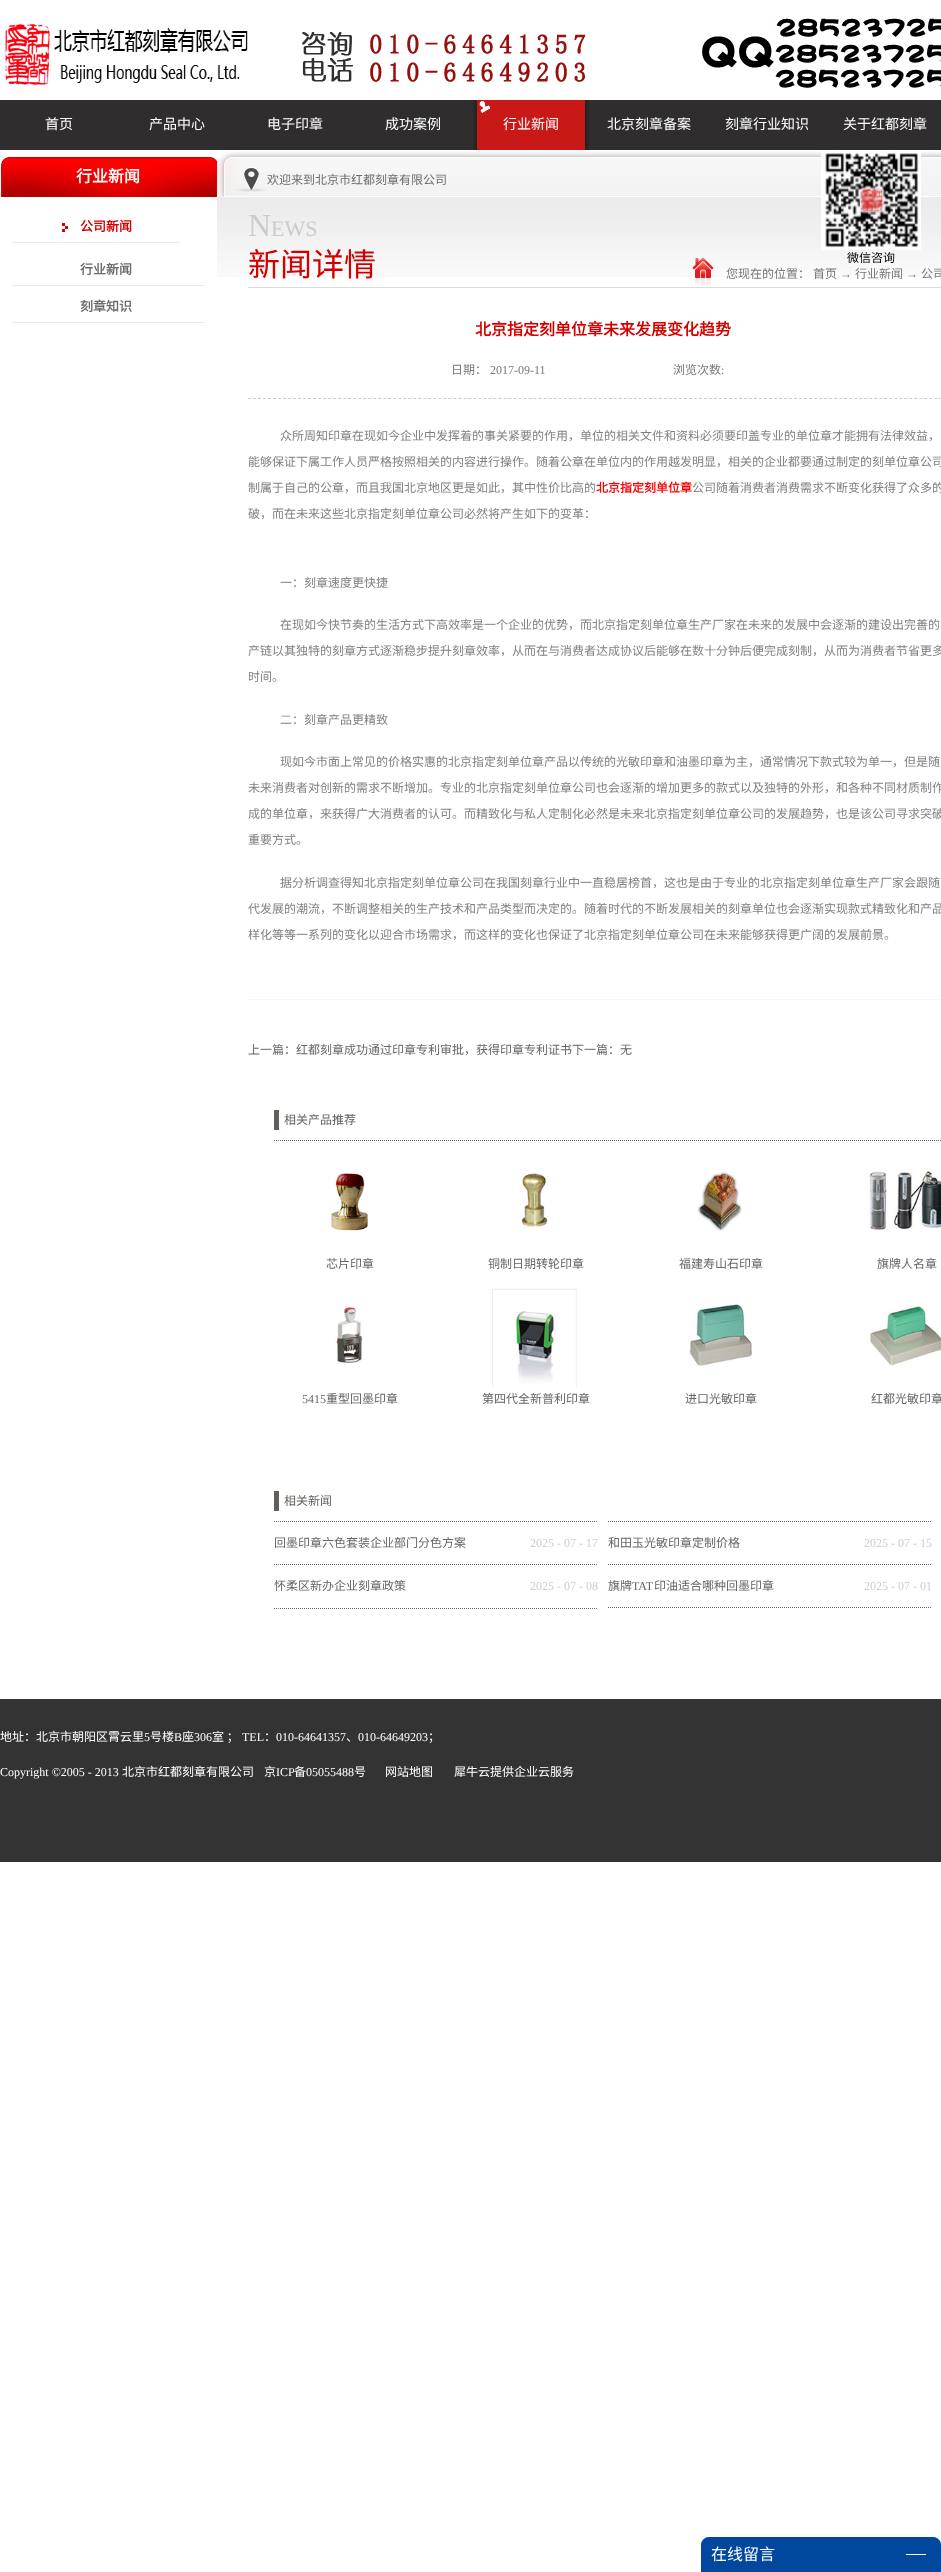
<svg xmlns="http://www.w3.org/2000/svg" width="941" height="2572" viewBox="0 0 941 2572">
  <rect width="100%" height="100%" fill="rgb(255,255,255)"/>
  <image x="3" y="24" width="245" height="61" href="pic1.png"/>
  <image x="302" y="32" width="284" height="50" href="pic2.png"/>
  <image x="702" y="17" width="239" height="71" href="pic3.png"/>
  <rect x="0" y="100" width="941" height="50" fill="rgb(47,45,46)"/>
  <g font-family="Noto Sans CJK SC" font-size="14" fill="rgb(255,255,255)">
    <text x="45" y="129">首页</text>
    <text x="149" y="129">产品中心</text>
    <text x="267" y="129">电子印章</text>
    <text x="385" y="129">成功案例</text>
  </g>
  <image x="473" y="100" width="116" height="50" href="pic4.png"/>
  <g font-family="Noto Sans CJK SC" font-size="14" fill="rgb(255,255,255)">
    <text x="503" y="129">行业新闻</text>
    <text x="607" y="129">北京刻章备案</text>
    <text x="725" y="129">刻章行业知识</text>
    <text x="843" y="129">关于红都刻章</text>
  </g>
  <image x="217" y="197" width="724" height="80" href="pic5.png"/>
  <image x="1" y="157" width="216" height="40" href="pic6.png"/>
  <text x="76" y="182" font-family="Noto Sans CJK SC" font-size="16" font-weight="bold" fill="rgb(255,255,255)">行业新闻</text>
  <image x="62" y="223" width="6" height="9" href="pic7.png"/>
  <rect x="12" y="242" width="168" height="1" fill="rgb(235,235,235)"/>
  <text x="80" y="231" font-family="Noto Sans CJK SC" font-size="13" font-weight="bold" fill="rgb(212,0,0)">公司新闻</text>
  <rect x="12" y="285" width="193" height="1" fill="rgb(235,235,235)"/>
  <text x="80" y="274" font-family="Noto Sans CJK SC" font-size="13" font-weight="bold" fill="rgb(108,108,108)">行业新闻</text>
  <rect x="12" y="322" width="193" height="1" fill="rgb(235,235,235)"/>
  <text x="80" y="311" font-family="Noto Sans CJK SC" font-size="13" font-weight="bold" fill="rgb(108,108,108)">刻章知识</text>
  <image x="217" y="151" width="724" height="46" href="pic8.png"/>
  <text x="267" y="184" font-family="Noto Sans CJK SC" font-size="12" fill="rgb(108,108,108)">欢迎来到北京市红都刻章有限公司</text>
  <rect x="248" y="287" width="693" height="1" fill="rgb(219,219,219)"/>
  <text x="248" y="236" font-family="Liberation Serif" font-size="32" fill="rgb(204,204,204)">N</text>
  <text x="271" y="236" font-family="Liberation Serif" font-size="22" fill="rgb(204,204,204)">EWS</text>
  <text x="248" y="276" font-family="Noto Sans CJK SC" font-size="32" fill="rgb(212,0,0)">新闻详情</text>
  <image x="692" y="257" width="22" height="28" href="pic9.png"/>
  <g font-family="Noto Sans CJK SC" font-size="12" fill="rgb(119,119,119)">
    <text x="726" y="278">您现在的位置：</text>
    <text x="813" y="278">首页</text>
  </g>
  <text x="840" y="278" font-family="Liberation Serif" font-size="12" fill="rgb(119,119,119)">→</text>
  <text x="855" y="278" font-family="Noto Sans CJK SC" font-size="12" fill="rgb(119,119,119)">行业新闻</text>
  <text x="906" y="278" font-family="Liberation Serif" font-size="12" fill="rgb(119,119,119)">→</text>
  <text x="921" y="278" font-family="Noto Sans CJK SC" font-size="12" fill="rgb(119,119,119)">公司</text>
  <path d="M248 398.5H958" fill="none" stroke="rgb(204,204,204)" stroke-dasharray="3 2.01"/>
  <text x="475" y="335" font-family="Noto Sans CJK SC" font-size="16" font-weight="bold" fill="rgb(212,0,0)">北京指定刻单位章未来发展变化趋势</text>
  <text x="451" y="374" font-family="Noto Sans CJK SC" font-size="12" fill="rgb(119,119,119)">日期：</text>
  <text x="490" y="374" font-family="Liberation Serif" font-size="12" fill="rgb(119,119,119)">2017-09-11</text>
  <text x="673" y="374" font-family="Noto Sans CJK SC" font-size="12" fill="rgb(119,119,119)">浏览次数</text>
  <text x="721" y="374" font-family="Liberation Serif" font-size="12" fill="rgb(119,119,119)">:</text>
  <g font-family="Noto Sans CJK SC" font-size="12" fill="rgb(129,129,129)">
    <text x="280" y="440">众所周知印章在现如今企业中发挥着的事关紧要的作用，单位的相关文件和资料必须要印盖专业的单位章才能拥有法律效益，</text>
    <text x="248" y="466">能够保证下属工作人员严格按照相关的内容进行操作。随着公章在单位内的作用越发明显，相关的企业都要通过制定的刻单位章公司</text>
    <text x="248" y="492">制属于自己的公章，而且我国北京地区更是如此，其中性价比高的</text>
  </g>
  <text x="596" y="492" font-family="Noto Sans CJK SC" font-size="12" font-weight="bold" fill="rgb(255,0,0)">北京指定刻单位章</text>
  <g font-family="Noto Sans CJK SC" font-size="12" fill="rgb(129,129,129)">
    <text x="692" y="492">公司随着消费者消费需求不断变化获得了众多的</text>
    <text x="248" y="518">破，而在未来这些北京指定刻单位章公司必然将产生如下的变革：</text>
    <text x="280" y="587">一：刻章速度更快捷</text>
    <text x="280" y="629">在现如今快节奏的生活方式下高效率是一个企业的优势，而北京指定刻单位章生产厂家在未来的发展中会逐渐的建设出完善的</text>
    <text x="248" y="655">产链以其独特的刻章方式逐渐稳步提升刻章效率，从而在与消费者达成协议后能够在数十分钟后便完成刻制，从而为消费者节省更多</text>
    <text x="248" y="681">时间。</text>
    <text x="280" y="724">二：刻章产品更精致</text>
    <text x="280" y="766">现如今市面上常见的价格实惠的北京指定刻单位章产品以传统的光敏印章和油墨印章为主，通常情况下款式较为单一，但是随</text>
    <text x="248" y="792">未来消费者对创新的需求不断增加。专业的北京指定刻单位章公司也会逐渐的增加更多的款式以及独特的外形，和各种不同材质制作</text>
    <text x="248" y="818">成的单位章，来获得广大消费者的认可。而精致化与私人定制化必然是未来北京指定刻单位章公司的发展趋势，也是该公司寻求突破</text>
    <text x="248" y="844">重要方式。</text>
    <text x="280" y="887">据分析调查得知北京指定刻单位章公司在我国刻章行业中一直稳居榜首，这也是由于专业的北京指定刻单位章生产厂家会跟随</text>
    <text x="248" y="913">代发展的潮流，不断调整相关的生产技术和产品类型而决定的。随着时代的不断发展相关的刻章单位也会逐渐实现款式精致化和产品</text>
    <text x="248" y="939">样化等等一系列的变化以迎合市场需求，而这样的变化也保证了北京指定刻单位章公司在未来能够获得更广阔的发展前景。</text>
  </g>
  <rect x="248" y="999" width="693" height="1" fill="rgb(246,246,246)"/>
  <text x="248" y="1054" font-family="Noto Sans CJK SC" font-size="12" fill="rgb(102,102,102)">上一篇：红都刻章成功通过印章专利审批，获得印章专利证书下一篇：无</text>
  <rect x="274" y="1110" width="5" height="20" fill="rgb(99,94,90)"/>
  <text x="284" y="1124" font-family="Noto Sans CJK SC" font-size="12" fill="rgb(99,94,90)">相关产品推荐</text>
  <path d="M274 1140.5H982" fill="none" stroke="rgb(104,104,104)" stroke-dasharray="1 1"/>
  <image x="331" y="1173" width="37" height="58" href="pic10.png"/>
  <text x="326" y="1268" font-family="Noto Sans CJK SC" font-size="12" fill="rgb(102,102,102)">芯片印章</text>
  <image x="520" y="1173" width="29" height="57" href="pic11.png"/>
  <text x="488" y="1268" font-family="Noto Sans CJK SC" font-size="12" fill="rgb(102,102,102)">铜制日期转轮印章</text>
  <image x="697" y="1172" width="45" height="59" href="pic12.png"/>
  <text x="679" y="1268" font-family="Noto Sans CJK SC" font-size="12" fill="rgb(102,102,102)">福建寿山石印章</text>
  <image x="866" y="1169" width="75" height="61" href="pic13.png"/>
  <text x="877" y="1268" font-family="Noto Sans CJK SC" font-size="12" fill="rgb(102,102,102)">旗牌人名章</text>
  <image x="334" y="1306" width="29" height="58" href="pic14.png"/>
  <text x="302" y="1403" font-family="Liberation Serif" font-size="12" fill="rgb(102,102,102)">5415</text>
  <text x="326" y="1403" font-family="Noto Sans CJK SC" font-size="12" fill="rgb(102,102,102)">重型回墨印章</text>
  <image x="492" y="1288" width="85" height="99" href="pic15.png"/>
  <text x="482" y="1403" font-family="Noto Sans CJK SC" font-size="12" fill="rgb(102,102,102)">第四代全新普利印章</text>
  <image x="689" y="1304" width="63" height="62" href="pic16.png"/>
  <text x="685" y="1403" font-family="Noto Sans CJK SC" font-size="12" fill="rgb(102,102,102)">进口光敏印章</text>
  <image x="870" y="1306" width="71" height="60" href="pic17.png"/>
  <text x="871" y="1403" font-family="Noto Sans CJK SC" font-size="12" fill="rgb(102,102,102)">红都光敏印章</text>
  <rect x="274" y="1491" width="5" height="20" fill="rgb(99,94,90)"/>
  <text x="284" y="1505" font-family="Noto Sans CJK SC" font-size="12" fill="rgb(99,94,90)">相关新闻</text>
  <path d="M274 1521.5H598" fill="none" stroke="rgb(104,104,104)" stroke-dasharray="1 1"/>
  <text x="274" y="1547" font-family="Noto Sans CJK SC" font-size="12" fill="rgb(102,102,102)">回墨印章六色套装企业部门分色方案</text>
  <text x="530" y="1547" font-family="Liberation Serif" font-size="12" fill="rgb(204,204,204)">2025 - 07 - 17</text>
  <path d="M608 1521.5H932" fill="none" stroke="rgb(104,104,104)" stroke-dasharray="1 1"/>
  <text x="608" y="1547" font-family="Noto Sans CJK SC" font-size="12" fill="rgb(102,102,102)">和田玉光敏印章定制价格</text>
  <text x="864" y="1547" font-family="Liberation Serif" font-size="12" fill="rgb(204,204,204)">2025 - 07 - 15</text>
  <path d="M274 1564.5H598" fill="none" stroke="rgb(104,104,104)" stroke-dasharray="1 1"/>
  <text x="274" y="1590" font-family="Noto Sans CJK SC" font-size="12" fill="rgb(102,102,102)">怀柔区新办企业刻章政策</text>
  <text x="530" y="1590" font-family="Liberation Serif" font-size="12" fill="rgb(204,204,204)">2025 - 07 - 08</text>
  <path d="M608 1564.5H932" fill="none" stroke="rgb(104,104,104)" stroke-dasharray="1 1"/>
  <path d="M608 1607.5H932" fill="none" stroke="rgb(104,104,104)" stroke-dasharray="1 1"/>
  <text x="608" y="1590" font-family="Noto Sans CJK SC" font-size="12" fill="rgb(102,102,102)">旗牌</text>
  <text x="632" y="1590" font-family="Liberation Serif" font-size="12" fill="rgb(102,102,102)">TAT</text>
  <text x="654" y="1590" font-family="Noto Sans CJK SC" font-size="12" fill="rgb(102,102,102)">印油适合哪种回墨印章</text>
  <text x="864" y="1590" font-family="Liberation Serif" font-size="12" fill="rgb(204,204,204)">2025 - 07 - 01</text>
  <path d="M274 1608.5H598" fill="none" stroke="rgb(104,104,104)" stroke-dasharray="1 1"/>
  <image x="821" y="151" width="100" height="99" href="pic18.png"/>
  <text x="847" y="262" font-family="Noto Sans CJK SC" font-size="12" fill="rgb(0,0,0)">微信咨询</text>
  <rect x="0" y="1699" width="941" height="163" fill="rgb(51,51,51)"/>
  <text x="0" y="1741" font-family="Noto Sans CJK SC" font-size="12" fill="rgb(255,255,255)">地址：北京市朝阳区霄云里</text>
  <text x="144" y="1741" font-family="Liberation Serif" font-size="12" fill="rgb(255,255,255)">5</text>
  <text x="150" y="1741" font-family="Noto Sans CJK SC" font-size="12" fill="rgb(255,255,255)">号楼</text>
  <text x="174" y="1741" font-family="Liberation Serif" font-size="12" fill="rgb(255,255,255)">B</text>
  <text x="182" y="1741" font-family="Noto Sans CJK SC" font-size="12" fill="rgb(255,255,255)">座</text>
  <text x="194" y="1741" font-family="Liberation Serif" font-size="12" fill="rgb(255,255,255)">306</text>
  <text x="212" y="1741" font-family="Noto Sans CJK SC" font-size="12" fill="rgb(255,255,255)">室 ；</text>
  <text x="242" y="1741" font-family="Liberation Serif" font-size="12" fill="rgb(255,255,255)">TEL</text>
  <text x="264" y="1741" font-family="Noto Sans CJK SC" font-size="12" fill="rgb(255,255,255)">：</text>
  <text x="276" y="1741" font-family="Liberation Serif" font-size="12" fill="rgb(255,255,255)">010-64641357</text>
  <text x="346" y="1741" font-family="Noto Sans CJK SC" font-size="12" fill="rgb(255,255,255)">、</text>
  <text x="358" y="1741" font-family="Liberation Serif" font-size="12" fill="rgb(255,255,255)">010-64649203</text>
  <text x="428" y="1741" font-family="Noto Sans CJK SC" font-size="12" fill="rgb(255,255,255)">；</text>
  <text x="0" y="1776" font-family="Liberation Serif" font-size="12" fill="rgb(255,255,255)">Copyright ©2005 - 2013</text>
  <g font-family="Noto Sans CJK SC" font-size="12" fill="rgb(255,255,255)">
    <text x="122" y="1776">北京市红都刻章有限公司</text>
    <text x="264" y="1776">京</text>
  </g>
  <text x="276" y="1776" font-family="Liberation Serif" font-size="12" fill="rgb(255,255,255)">ICP</text>
  <text x="294" y="1776" font-family="Noto Sans CJK SC" font-size="12" fill="rgb(255,255,255)">备</text>
  <text x="306" y="1776" font-family="Liberation Serif" font-size="12" fill="rgb(255,255,255)">05055488</text>
  <g font-family="Noto Sans CJK SC" font-size="12" fill="rgb(255,255,255)">
    <text x="354" y="1776">号</text>
    <text x="385" y="1776">网站地图</text>
    <text x="454" y="1776">犀牛云提供企业云服务</text>
  </g>
  <path d="M709 2537H933C937.5 2537 941 2540.5 941 2545V2572H701V2545C701 2540.5 704.5 2537 709 2537Z" fill="rgb(0,71,157)"/>
  <text x="711" y="2560" font-family="Noto Sans CJK SC" font-size="16" fill="rgb(255,255,255)">在线留言</text>
  <rect x="906" y="2554" width="20" height="1" fill="rgb(255,255,255)"/>
</svg>
